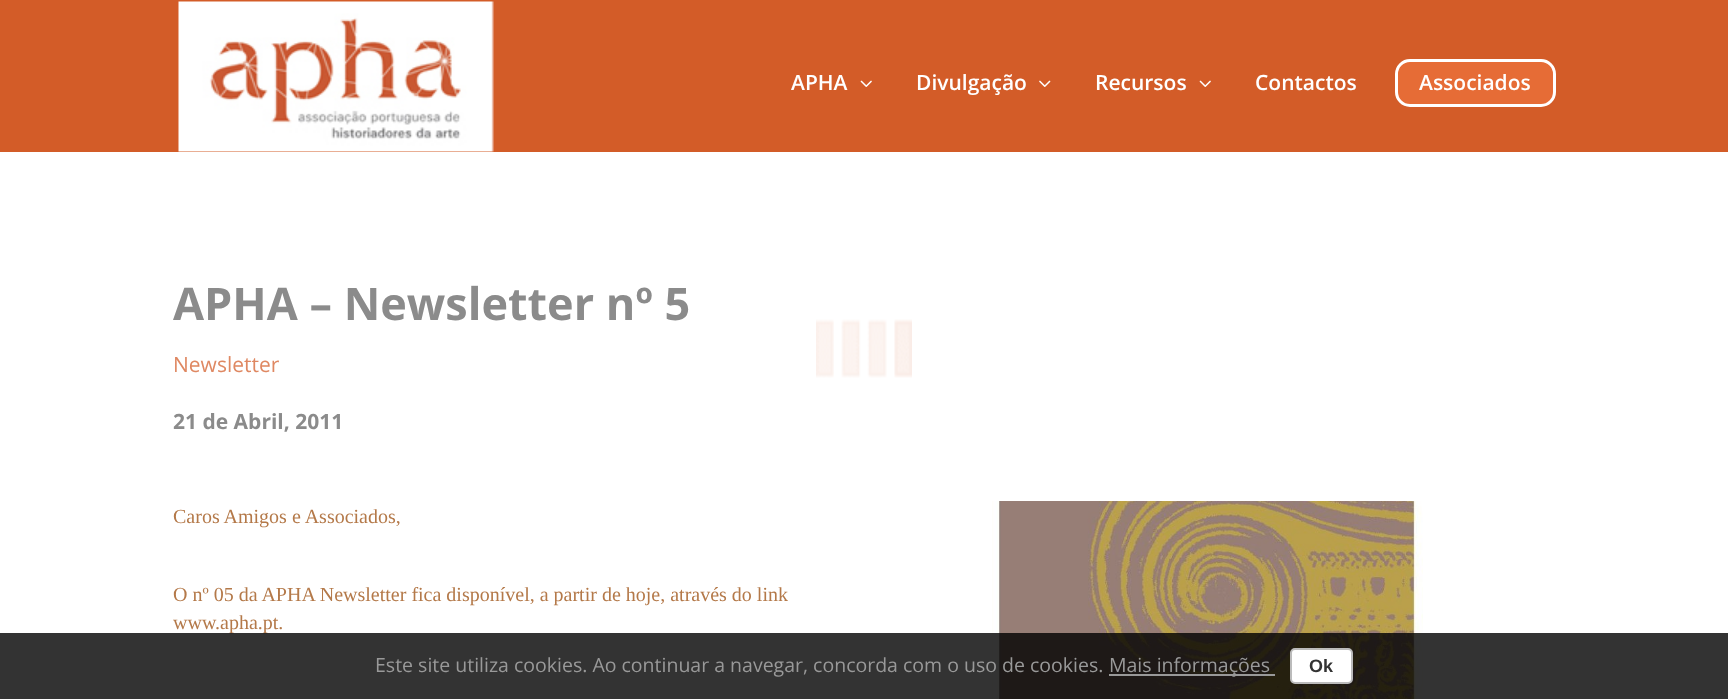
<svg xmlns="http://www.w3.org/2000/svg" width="1728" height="699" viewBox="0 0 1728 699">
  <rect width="100%" height="100%" fill="rgb(255,255,255)"/>
  <rect x="0" y="0" width="1728" height="152" fill="rgb(211,92,40)"/>
  <image x="178" y="1" width="316" height="151" href="pic1.png"/>
  <text x="791" y="90" font-family="Open Sans" font-size="21" font-weight="600" fill="rgb(255,255,255)">APHA</text>
  <image x="860" y="80" width="12" height="7" href="pic2.png"/>
  <text x="916" y="90" font-family="Open Sans" font-size="21" font-weight="600" fill="rgb(255,255,255)">Divulgação</text>
  <image x="1039" y="80" width="12" height="7" href="pic3.png"/>
  <text x="1095" y="90" font-family="Open Sans" font-size="21" font-weight="600" fill="rgb(255,255,255)">Recursos</text>
  <image x="1199" y="80" width="12" height="7" href="pic2.png"/>
  <text x="1255" y="90" font-family="Open Sans" font-size="21" font-weight="600" fill="rgb(255,255,255)">Contactos</text>
  <rect x="1396.5" y="60.5" width="158" height="45" rx="13.5" fill="rgb(230,108,54)" stroke="rgb(255,255,255)" stroke-width="3"/>
  <text x="1419" y="90" font-family="Open Sans" font-size="21" font-weight="600" fill="rgb(255,255,255)">Associados</text>
  <text x="173" y="320" font-family="Open Sans" font-size="45" font-weight="bold" fill="rgb(139,139,139)">APHA – Newsletter nº 5</text>
  <text x="173" y="372" font-family="Open Sans" font-size="21" fill="rgb(223,136,98)">Newsletter</text>
  <text x="173" y="429" font-family="Open Sans" font-size="21" font-weight="bold" fill="rgb(139,139,139)">21 de Abril, 2011</text>
  <image x="992" y="501" width="431" height="198" href="pic4.png"/>
  <g font-family="Liberation Serif" font-size="20" fill="rgb(180,121,73)">
    <text x="173" y="523">Caros Amigos e Associados,</text>
    <text>
      <tspan x="173" y="601">O nº 05 da APHA Newsletter fica disponível, a partir de hoje, através do link</tspan>
      <tspan x="173" y="629">www.apha.pt.</tspan>
    </text>
  </g>
  <image x="816" y="319" width="96" height="59" href="pic5.png"/>
  <rect x="0" y="633" width="1728" height="66" fill="rgba(0,0,0,0.8)"/>
  <text x="375" y="672" font-family="Open Sans" font-size="19.5" fill="rgb(153,153,153)">Este site utiliza cookies. Ao continuar a navegar, concorda com o uso de cookies.</text>
  <rect x="1109" y="674" width="166" height="2" fill="rgb(153,153,153)"/>
  <text x="1109" y="672" font-family="Open Sans" font-size="19.5" fill="rgb(153,153,153)">Mais informações</text>
  <rect x="1291" y="649" width="61" height="34" rx="4" fill="rgb(255,255,255)" stroke="rgb(187,187,187)" stroke-width="2"/>
  <text x="1309" y="672" font-family="Liberation Sans" font-size="18" font-weight="bold" fill="rgb(51,51,51)">Ok</text>
</svg>
